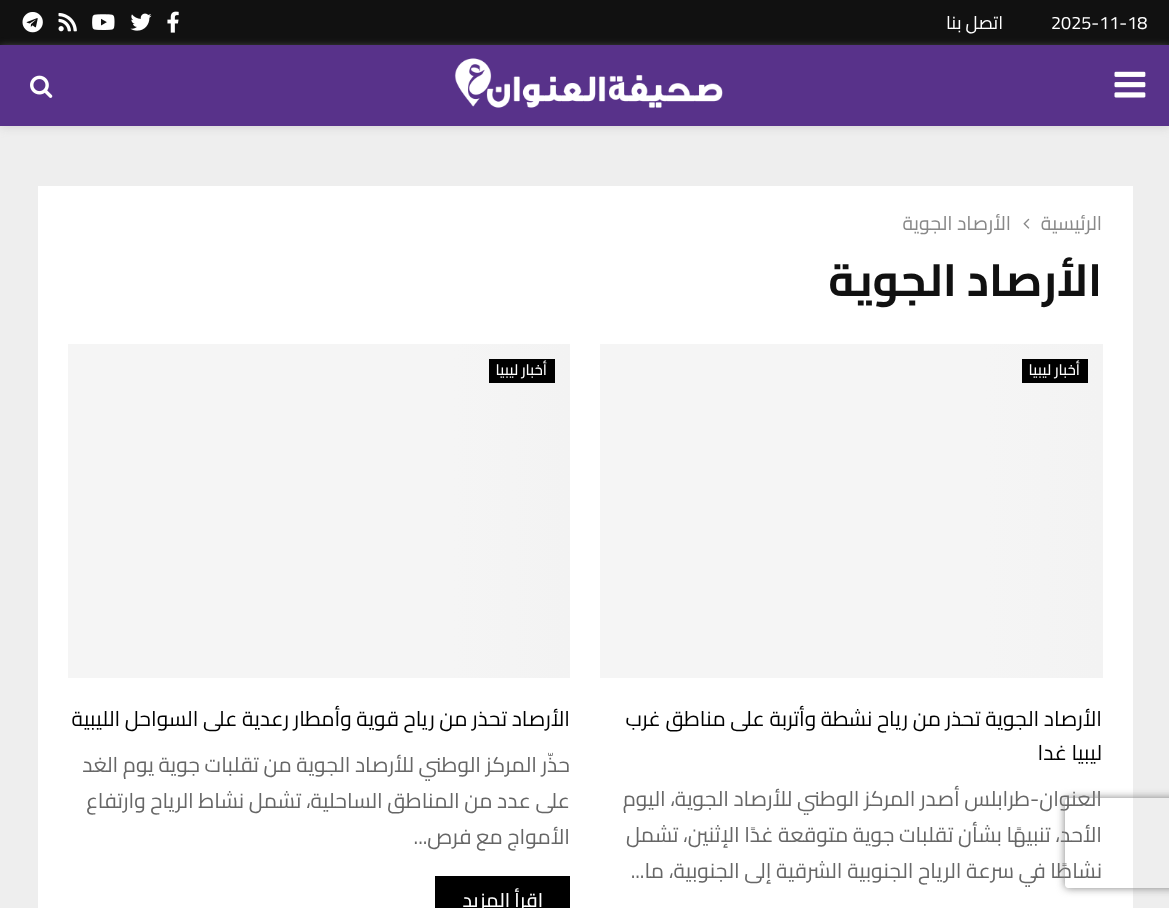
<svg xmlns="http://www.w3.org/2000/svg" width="1169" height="908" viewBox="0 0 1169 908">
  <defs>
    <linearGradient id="g1" gradientUnits="userSpaceOnUse" x1="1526" y1="511" x2="176" y2="511"><stop offset="0" stop-color="rgb(245,245,245)"/><stop offset="0.15" stop-color="rgb(239,239,239)"/><stop offset="0.4" stop-color="rgb(245,245,245)"/><stop offset="1" stop-color="rgb(245,245,245)"/></linearGradient>
    <linearGradient id="g2" gradientUnits="userSpaceOnUse" x1="994" y1="511" x2="-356" y2="511"><stop offset="0" stop-color="rgb(245,245,245)"/><stop offset="0.15" stop-color="rgb(239,239,239)"/><stop offset="0.4" stop-color="rgb(245,245,245)"/><stop offset="1" stop-color="rgb(245,245,245)"/></linearGradient>
    <clipPath id="clip1"><path d="M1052 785H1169V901H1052ZM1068 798H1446C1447.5 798 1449 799.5 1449 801V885C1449 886.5 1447.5 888 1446 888H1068C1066.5 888 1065 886.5 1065 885V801C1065 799.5 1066.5 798 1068 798Z" clip-rule="evenodd"/></clipPath>
  </defs>
  <rect width="100%" height="100%" fill="rgb(238,238,238)"/>
  <rect x="0" y="0" width="1169" height="45" fill="rgb(17,17,17)"/>
  <text x="1051" y="29" font-family="Cairo" font-size="18" fill="rgb(255,255,255)">2025-11-18</text>
  <text x="1003" y="29" font-family="Cairo" font-size="18" direction="rtl" fill="rgb(255,255,255)">اتصل بنا</text>
  <image x="167" y="11" width="12" height="22" href="pic1.png"/>
  <image x="130" y="13" width="22" height="18" href="pic2.png"/>
  <image x="92" y="14" width="23" height="16" href="pic3.png"/>
  <image x="58" y="12" width="19" height="20" href="pic4.png"/>
  <image x="22" y="12" width="21" height="21" href="pic5.png"/>
  <rect x="0" y="47" width="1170" height="81" fill="rgba(190,190,190,0.46)" filter="blur(4px)"/>
  <rect x="0" y="45" width="1169" height="81" fill="rgb(88,50,138)"/>
  <image x="1114" y="71" width="32" height="27" href="pic6.png"/>
  <image x="454" y="58" width="269" height="50" href="pic7.png"/>
  <image x="30" y="75" width="23" height="23" href="pic8.png"/>
  <rect x="38" y="186" width="1095" height="722" fill="rgb(255,255,255)"/>
  <text x="1102" y="230" font-family="Cairo" font-size="19.5" direction="rtl" fill="rgb(136,136,136)">الرئيسية</text>
  <image x="1023" y="218" width="7" height="11" href="pic9.png"/>
  <text x="1011" y="230" font-family="Cairo" font-size="19.5" direction="rtl" fill="rgb(136,136,136)">الأرصاد الجوية</text>
  <text x="1102" y="296" font-family="Cairo" font-size="45" font-weight="bold" direction="rtl" fill="rgb(17,17,17)">الأرصاد الجوية</text>
  <rect x="600" y="344" width="503" height="334" fill="url(#g1)"/>
  <rect x="1022" y="359" width="66" height="24" fill="rgb(0,0,0)"/>
  <text x="1080" y="375" font-family="Cairo" font-size="15" font-weight="500" direction="rtl" fill="rgb(255,255,255)">أخبار ليبيا</text>
  <g font-family="Cairo" font-size="21" direction="rtl" fill="rgb(0,0,0)">
    <text>
      <tspan x="1102" y="726">الأرصاد الجوية تحذر من رياح نشطة وأتربة على مناطق غرب</tspan>
      <tspan x="1102" y="760">ليبيا غدا</tspan>
    </text>
  </g>
  <g font-family="Cairo" font-size="21" direction="rtl" fill="rgb(102,102,102)">
    <text>
      <tspan x="1102" y="806">العنوان-طرابلس أصدر المركز الوطني للأرصاد الجوية، اليوم</tspan>
      <tspan x="1102" y="842">الأحد، تنبيهًا بشأن تقلبات جوية متوقعة غدًا الإثنين، تشمل</tspan>
      <tspan x="1102" y="878">نشاطًا في سرعة الرياح الجنوبية الشرقية إلى الجنوبية، ما...</tspan>
    </text>
  </g>
  <rect x="68" y="344" width="502" height="334" fill="url(#g2)"/>
  <rect x="489" y="359" width="66" height="24" fill="rgb(0,0,0)"/>
  <text x="547" y="375" font-family="Cairo" font-size="15" font-weight="500" direction="rtl" fill="rgb(255,255,255)">أخبار ليبيا</text>
  <text x="570" y="726" font-family="Cairo" font-size="21" direction="rtl" fill="rgb(0,0,0)">الأرصاد تحذر من رياح قوية وأمطار رعدية على السواحل الليبية</text>
  <g font-family="Cairo" font-size="21" direction="rtl" fill="rgb(102,102,102)">
    <text>
      <tspan x="570" y="772">حذّر المركز الوطني للأرصاد الجوية من تقلبات جوية يوم الغد</tspan>
      <tspan x="570" y="808">على عدد من المناطق الساحلية، تشمل نشاط الرياح وارتفاع</tspan>
      <tspan x="570" y="844">الأمواج مع فرص...</tspan>
    </text>
  </g>
  <rect x="435" y="876" width="135" height="32" fill="rgb(0,0,0)"/>
  <text x="543" y="907" font-family="Cairo" font-size="19.5" font-weight="500" direction="rtl" fill="rgb(255,255,255)">اقرأ المزيد</text>
  <g clip-path="url(#clip1)">
    <rect x="1065" y="798" width="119" height="90" rx="3" fill="rgb(128,128,128)" filter="blur(4px)"/>
  </g>
</svg>
